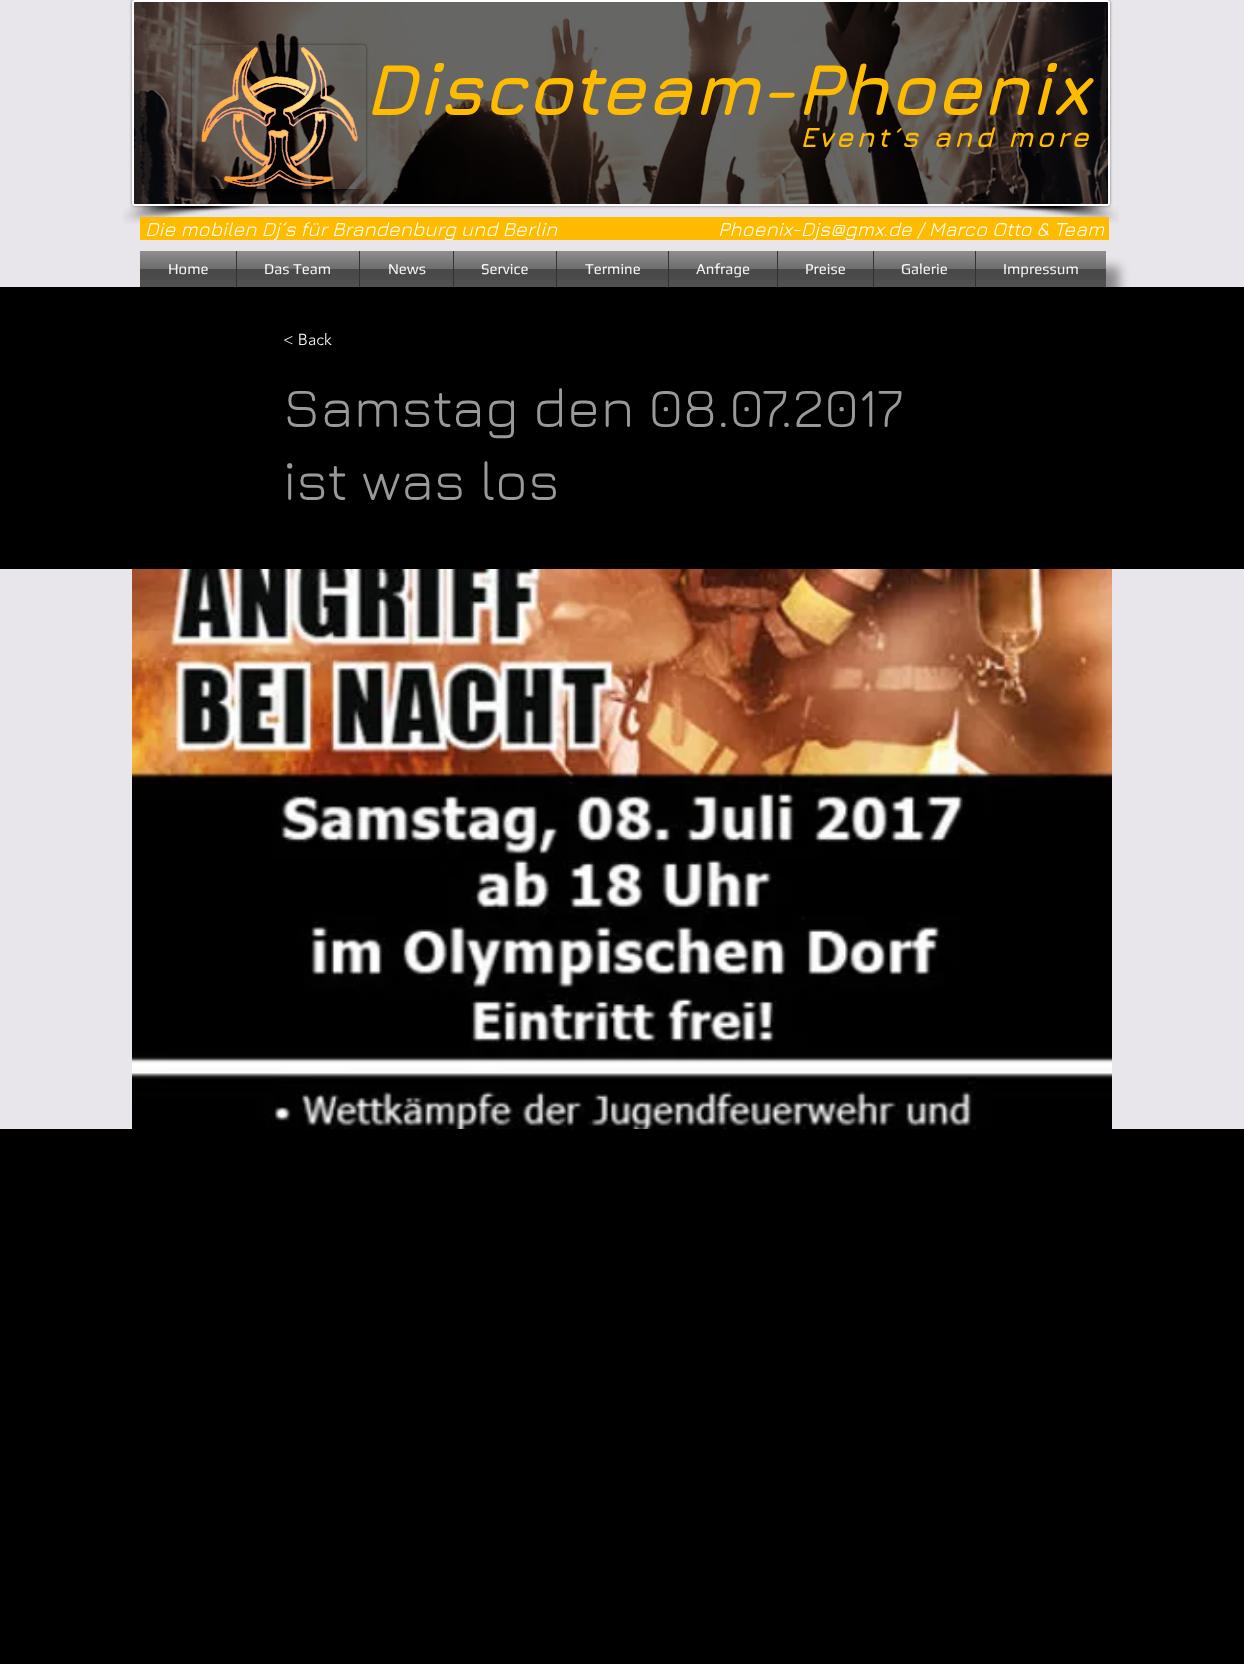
<svg xmlns="http://www.w3.org/2000/svg" width="1244" height="1664" viewBox="0 0 1244 1664">
  <defs>
    <clipPath id="clip1"><path d="M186 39H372V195H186ZM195 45H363C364.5 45 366 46.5 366 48V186C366 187.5 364.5 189 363 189H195C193.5 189 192 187.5 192 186V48C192 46.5 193.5 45 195 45Z" clip-rule="evenodd"/></clipPath>
  </defs>
  <rect width="100%" height="100%" fill="rgb(233,230,235)"/>
  <rect x="132" y="0" width="978" height="206" rx="3" fill="rgba(0,0,0,0.5)" filter="blur(1.5px)"/>
  <rect x="133" y="1" width="976" height="204" rx="2" fill="none" stroke="rgb(255,255,255)" stroke-width="2"/>
  <image x="134" y="2" width="974" height="202" href="pic1.png"/>
  <image x="123" y="206" width="154" height="18" href="pic2.png"/>
  <image x="965" y="206" width="154" height="17" href="pic3.png"/>
  <g clip-path="url(#clip1)">
    <rect x="192" y="45" width="174" height="144" rx="3" fill="rgba(0,0,0,0.5)" filter="blur(1.5px)"/>
  </g>
  <image x="201" y="47" width="157" height="140" href="pic4.png"/>
  <image x="185" y="189" width="127" height="17" href="pic5.png"/>
  <image x="260" y="189" width="113" height="18" href="pic6.png"/>
  <text x="364" y="115" font-family="Jura" font-size="73" font-weight="bold" font-style="italic" fill="rgb(255,187,0)">Discoteam-Phoenix</text>
  <text x="800" y="147" font-family="Jura" font-size="28" font-weight="bold" font-style="italic" letter-spacing="2.75" fill="rgb(255,187,0)">Event´s and more</text>
  <rect x="140" y="217" width="969" height="23" fill="rgb(255,187,0)"/>
  <g font-family="Jura" font-size="20" font-style="italic" fill="rgb(255,255,255)">
    <text x="145" y="236">Die mobilen Dj´s für Brandenburg und Berlin</text>
    <text x="718" y="236">Phoenix-Djs@gmx.de / Marco Otto &amp; Team</text>
  </g>
  <rect x="151" y="267" width="968" height="38" fill="rgba(1,1,1,0.4)" filter="blur(5.5px)"/>
  <rect x="140" y="251" width="966" height="36" fill="rgb(127,126,128)"/>
  <image x="140" y="251" width="966" height="36" href="pic7.png"/>
  <rect x="140" y="251" width="96" height="36" fill="rgba(51,51,51,0.58)"/>
  <text x="168" y="274" font-family="Play" font-size="15" fill="rgb(255,255,255)">Home</text>
  <image x="140" y="251" width="96" height="29" href="pic8.png"/>
  <rect x="237" y="251" width="122" height="36" fill="rgba(51,51,51,0.58)"/>
  <rect x="236" y="251" width="1" height="36" fill="rgb(51,51,51)"/>
  <text x="264" y="274" font-family="Play" font-size="15" fill="rgb(255,255,255)">Das Team</text>
  <image x="237" y="251" width="122" height="29" href="pic9.png"/>
  <rect x="360" y="251" width="93" height="36" fill="rgba(51,51,51,0.58)"/>
  <rect x="359" y="251" width="1" height="36" fill="rgb(51,51,51)"/>
  <text x="388" y="274" font-family="Play" font-size="15" fill="rgb(255,255,255)">News</text>
  <image x="360" y="251" width="93" height="29" href="pic10.png"/>
  <rect x="454" y="251" width="102" height="36" fill="rgba(51,51,51,0.58)"/>
  <rect x="453" y="251" width="1" height="36" fill="rgb(51,51,51)"/>
  <text x="481" y="274" font-family="Play" font-size="15" fill="rgb(255,255,255)">Service</text>
  <image x="454" y="251" width="102" height="29" href="pic11.png"/>
  <rect x="557" y="251" width="111" height="36" fill="rgba(51,51,51,0.58)"/>
  <rect x="556" y="251" width="1" height="36" fill="rgb(51,51,51)"/>
  <text x="585" y="274" font-family="Play" font-size="15" fill="rgb(255,255,255)">Termine</text>
  <image x="557" y="251" width="111" height="29" href="pic12.png"/>
  <rect x="669" y="251" width="108" height="36" fill="rgba(51,51,51,0.58)"/>
  <rect x="668" y="251" width="1" height="36" fill="rgb(51,51,51)"/>
  <text x="696" y="274" font-family="Play" font-size="15" fill="rgb(255,255,255)">Anfrage</text>
  <image x="669" y="251" width="108" height="29" href="pic13.png"/>
  <rect x="778" y="251" width="95" height="36" fill="rgba(51,51,51,0.58)"/>
  <rect x="777" y="251" width="1" height="36" fill="rgb(51,51,51)"/>
  <text x="805" y="274" font-family="Play" font-size="15" fill="rgb(255,255,255)">Preise</text>
  <image x="778" y="251" width="95" height="29" href="pic14.png"/>
  <rect x="874" y="251" width="101" height="36" fill="rgba(51,51,51,0.58)"/>
  <rect x="873" y="251" width="1" height="36" fill="rgb(51,51,51)"/>
  <text x="901" y="274" font-family="Play" font-size="15" fill="rgb(255,255,255)">Galerie</text>
  <image x="874" y="251" width="101" height="29" href="pic15.png"/>
  <rect x="976" y="251" width="130" height="36" fill="rgba(51,51,51,0.58)"/>
  <rect x="975" y="251" width="1" height="36" fill="rgb(51,51,51)"/>
  <text x="1003" y="274" font-family="Play" font-size="15" fill="rgb(255,255,255)">Impressum</text>
  <image x="976" y="251" width="130" height="29" href="pic16.png"/>
  <rect x="0" y="287" width="1244" height="282" fill="rgb(0,0,0)"/>
  <text x="283" y="345" font-family="'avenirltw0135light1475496'" font-size="16" font-weight="300" fill="rgb(255,255,255)">&lt; Back</text>
  <g font-family="Jura" font-size="56" fill="rgb(153,153,153)">
    <text>
      <tspan x="283" y="427">Samstag den 08.07.2017</tspan>
      <tspan x="283" y="500">ist was los</tspan>
    </text>
  </g>
  <image x="132" y="569" width="980" height="560" href="pic17.png"/>
  <rect x="0" y="1129" width="1244" height="535" fill="rgb(0,0,0)"/>
</svg>
